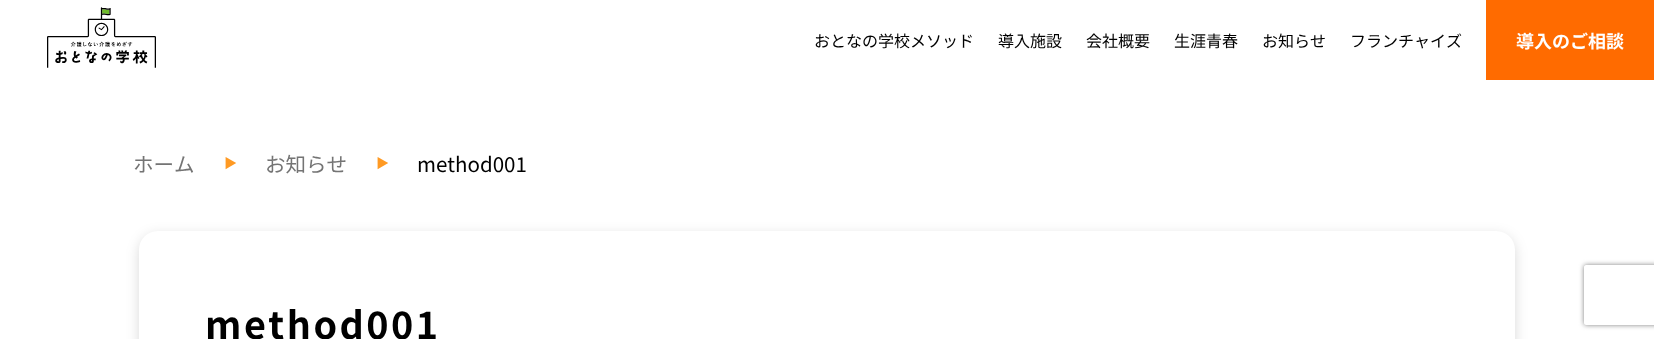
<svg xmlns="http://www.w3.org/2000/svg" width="1654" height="339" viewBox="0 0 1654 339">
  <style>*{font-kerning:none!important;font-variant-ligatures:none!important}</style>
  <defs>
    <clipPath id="clip1"><path d="M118 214H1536V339H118ZM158 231H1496C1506.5 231 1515 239.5 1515 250V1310C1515 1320.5 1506.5 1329 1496 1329H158C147.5 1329 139 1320.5 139 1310V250C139 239.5 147.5 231 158 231Z" clip-rule="evenodd"/></clipPath>
    <clipPath id="clip2"><path d="M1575 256H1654V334H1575ZM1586 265H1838C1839 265 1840 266 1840 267V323C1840 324 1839 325 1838 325H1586C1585 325 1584 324 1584 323V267C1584 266 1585 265 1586 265Z" clip-rule="evenodd"/></clipPath>
  </defs>
  <rect width="100%" height="100%" fill="rgb(255,255,255)"/>
  <image x="47" y="7" width="109" height="61" href="pic1.png"/>
  <g font-family="Noto Sans JP" font-size="16" fill="rgb(0,0,0)">
    <text x="814" y="47">おとなの学校メソッド</text>
    <text x="998" y="47">導入施設</text>
    <text x="1086" y="47">会社概要</text>
    <text x="1174" y="47">生涯青春</text>
    <text x="1262" y="47">お知らせ</text>
    <text x="1350" y="47">フランチャイズ</text>
  </g>
  <rect x="1486" y="0" width="168" height="80" fill="rgb(255,107,0)"/>
  <text x="1516" y="48" font-family="Noto Sans JP" font-size="18" font-weight="bold" fill="rgb(255,255,255)">導入のご相談</text>
  <text x="133" y="172" font-family="Noto Sans JP" font-size="20.5" fill="rgb(116,116,116)">ホーム</text>
  <text x="224" y="168" font-family="Noto Sans JP" font-size="13" fill="rgb(255,154,35)">▶</text>
  <text x="265" y="172" font-family="Noto Sans JP" font-size="20.5" fill="rgb(116,116,116)">お知らせ</text>
  <text x="376" y="168" font-family="Noto Sans JP" font-size="13" fill="rgb(255,154,35)">▶</text>
  <text x="417" y="172" font-family="Noto Sans JP" font-size="20.5" fill="rgb(0,0,0)">method001</text>
  <g clip-path="url(#clip1)">
    <rect x="139" y="235" width="1376" height="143" rx="19" fill="rgba(0,0,0,0.15)" filter="blur(6.5px)"/>
  </g>
  <text x="205" y="339" font-family="Noto Sans JP" font-size="37.75" font-weight="bold" letter-spacing="2.5" fill="rgb(0,0,0)">method001</text>
  <g clip-path="url(#clip2)">
    <rect x="1584" y="265" width="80" height="60" rx="2" fill="rgb(128,128,128)" filter="blur(2.5px)"/>
  </g>
</svg>
